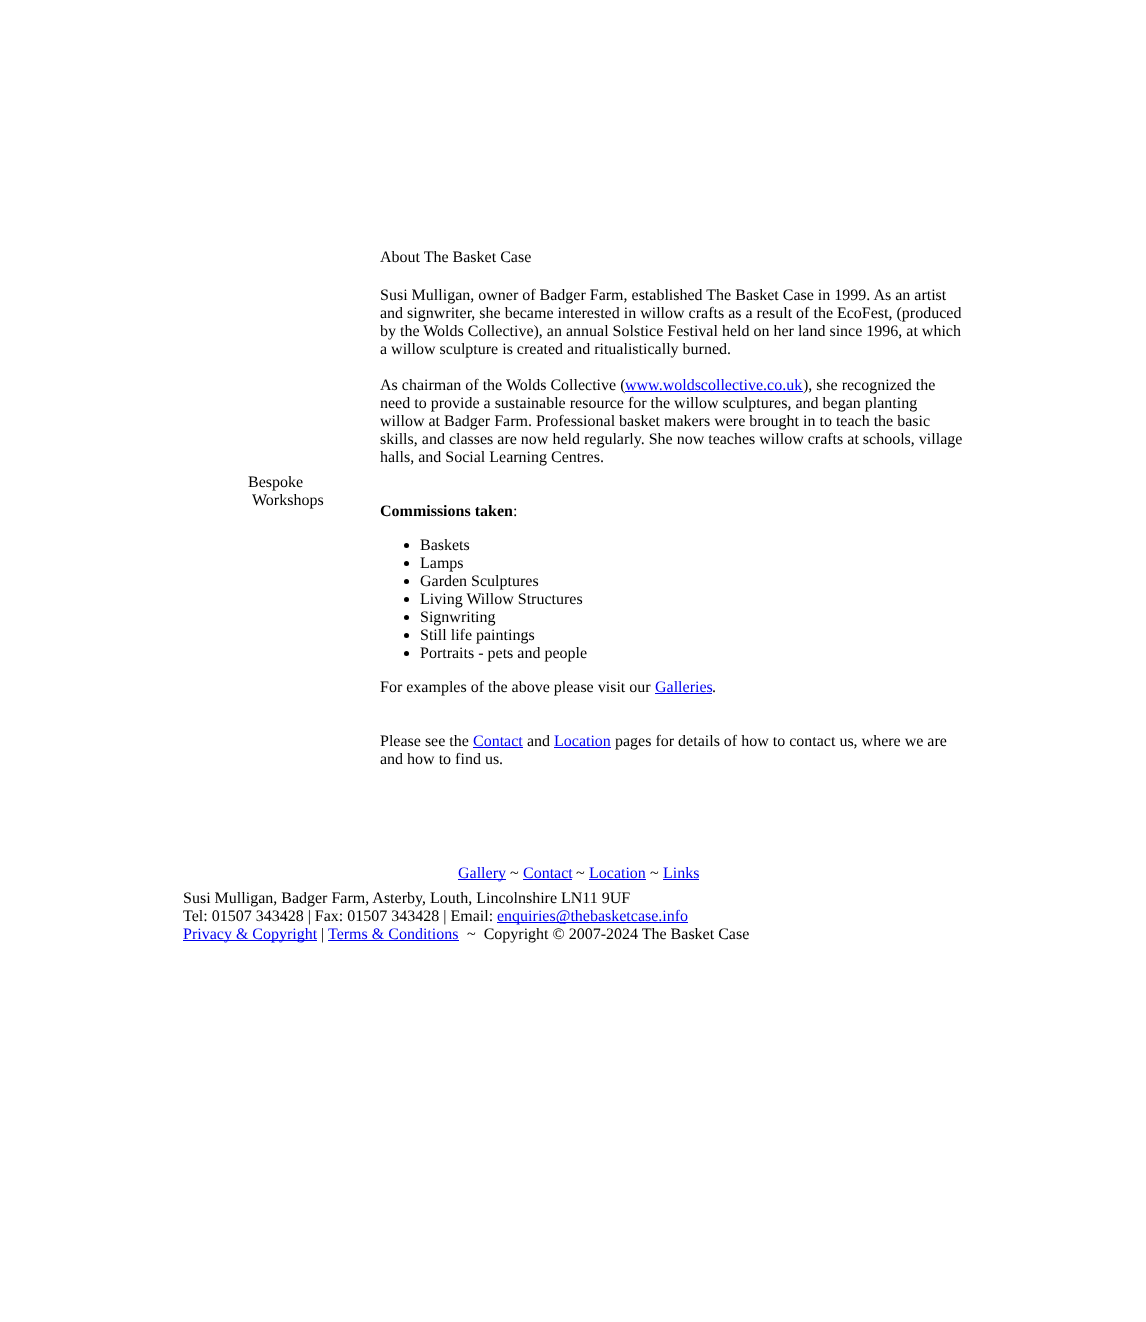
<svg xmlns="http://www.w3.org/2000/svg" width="1146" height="1322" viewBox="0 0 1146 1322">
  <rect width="100%" height="100%" fill="rgb(255,255,255)"/>
  <g font-family="Liberation Serif" font-size="16" fill="rgb(0,0,0)">
    <text x="248" y="487">Bespoke</text>
    <text x="252" y="505">Workshops</text>
    <text x="380" y="262">About The Basket Case</text>
    <text>
      <tspan x="380" y="300">Susi Mulligan, owner of Badger Farm, established The Basket Case in 1999. As an artist</tspan>
      <tspan x="380" y="318">and signwriter, she became interested in willow crafts as a result of the EcoFest, (produced</tspan>
      <tspan x="380" y="336">by the Wolds Collective), an annual Solstice Festival held on her land since 1996, at which</tspan>
      <tspan x="380" y="354">a willow sculpture is created and ritualistically burned.</tspan>
    </text>
    <text x="380" y="390">As chairman of the Wolds Collective (</text>
  </g>
  <text x="625" y="390" font-family="Liberation Serif" font-size="16" fill="rgb(0,0,238)">www.woldscollective.co.uk</text>
  <rect x="625" y="391" width="178" height="1" fill="rgb(0,0,238)"/>
  <g font-family="Liberation Serif" font-size="16" fill="rgb(0,0,0)">
    <text x="803" y="390">), she recognized the</text>
    <text>
      <tspan x="380" y="408">need to provide a sustainable resource for the willow sculptures, and began planting</tspan>
      <tspan x="380" y="426">willow at Badger Farm. Professional basket makers were brought in to teach the basic</tspan>
      <tspan x="380" y="444">skills, and classes are now held regularly. She now teaches willow crafts at schools, village</tspan>
      <tspan x="380" y="462">halls, and Social Learning Centres.</tspan>
    </text>
  </g>
  <text x="380" y="516" font-family="Liberation Serif" font-size="16" font-weight="bold" fill="rgb(0,0,0)">Commissions taken</text>
  <text x="513" y="516" font-family="Liberation Serif" font-size="16" fill="rgb(0,0,0)">:</text>
  <circle cx="406.5" cy="545.5" r="2.5" fill="rgb(0,0,0)"/>
  <text x="420" y="550" font-family="Liberation Serif" font-size="16" fill="rgb(0,0,0)">Baskets</text>
  <circle cx="406.5" cy="563.5" r="2.5" fill="rgb(0,0,0)"/>
  <text x="420" y="568" font-family="Liberation Serif" font-size="16" fill="rgb(0,0,0)">Lamps</text>
  <circle cx="406.5" cy="581.5" r="2.5" fill="rgb(0,0,0)"/>
  <text x="420" y="586" font-family="Liberation Serif" font-size="16" fill="rgb(0,0,0)">Garden Sculptures</text>
  <circle cx="406.5" cy="599.5" r="2.5" fill="rgb(0,0,0)"/>
  <text x="420" y="604" font-family="Liberation Serif" font-size="16" fill="rgb(0,0,0)">Living Willow Structures</text>
  <circle cx="406.5" cy="617.5" r="2.5" fill="rgb(0,0,0)"/>
  <text x="420" y="622" font-family="Liberation Serif" font-size="16" fill="rgb(0,0,0)">Signwriting</text>
  <circle cx="406.5" cy="635.5" r="2.5" fill="rgb(0,0,0)"/>
  <text x="420" y="640" font-family="Liberation Serif" font-size="16" fill="rgb(0,0,0)">Still life paintings</text>
  <circle cx="406.5" cy="653.5" r="2.5" fill="rgb(0,0,0)"/>
  <g font-family="Liberation Serif" font-size="16" fill="rgb(0,0,0)">
    <text x="420" y="658">Portraits - pets and people</text>
    <text x="380" y="692">For examples of the above please visit our</text>
  </g>
  <text x="655" y="692" font-family="Liberation Serif" font-size="16" fill="rgb(0,0,238)">Galleries</text>
  <rect x="655" y="693" width="57" height="1" fill="rgb(0,0,238)"/>
  <g font-family="Liberation Serif" font-size="16" fill="rgb(0,0,0)">
    <text x="712" y="692">.</text>
    <text x="380" y="746">Please see the</text>
  </g>
  <text x="473" y="746" font-family="Liberation Serif" font-size="16" fill="rgb(0,0,238)">Contact</text>
  <rect x="473" y="747" width="50" height="1" fill="rgb(0,0,238)"/>
  <text x="527" y="746" font-family="Liberation Serif" font-size="16" fill="rgb(0,0,0)">and</text>
  <text x="554" y="746" font-family="Liberation Serif" font-size="16" fill="rgb(0,0,238)">Location</text>
  <rect x="554" y="747" width="57" height="1" fill="rgb(0,0,238)"/>
  <g font-family="Liberation Serif" font-size="16" fill="rgb(0,0,0)">
    <text x="615" y="746">pages for details of how to contact us, where we are</text>
    <text x="380" y="764">and how to find us.</text>
  </g>
  <rect x="458" y="879" width="48" height="1" fill="rgb(0,0,238)"/>
  <text x="458" y="878" font-family="Liberation Serif" font-size="16" fill="rgb(0,0,238)">Gallery</text>
  <text x="510" y="878" font-family="Liberation Serif" font-size="16" fill="rgb(0,0,0)">~</text>
  <text x="523" y="878" font-family="Liberation Serif" font-size="16" fill="rgb(0,0,238)">Contact</text>
  <rect x="523" y="879" width="49" height="1" fill="rgb(0,0,238)"/>
  <text x="576" y="878" font-family="Liberation Serif" font-size="16" fill="rgb(0,0,0)">~</text>
  <text x="589" y="878" font-family="Liberation Serif" font-size="16" fill="rgb(0,0,238)">Location</text>
  <rect x="589" y="879" width="57" height="1" fill="rgb(0,0,238)"/>
  <text x="650" y="878" font-family="Liberation Serif" font-size="16" fill="rgb(0,0,0)">~</text>
  <text x="663" y="878" font-family="Liberation Serif" font-size="16" fill="rgb(0,0,238)">Links</text>
  <rect x="663" y="879" width="36" height="1" fill="rgb(0,0,238)"/>
  <g font-family="Liberation Serif" font-size="16" fill="rgb(0,0,0)">
    <text>
      <tspan x="183" y="903">Susi Mulligan, Badger Farm, Asterby, Louth, Lincolnshire LN11 9UF</tspan>
      <tspan x="183" y="921">Tel: 01507 343428 | Fax: 01507 343428 | Email:</tspan>
    </text>
  </g>
  <rect x="497" y="922" width="191" height="1" fill="rgb(0,0,238)"/>
  <text x="497" y="921" font-family="Liberation Serif" font-size="16" fill="rgb(0,0,238)">enquiries@thebasketcase.info</text>
  <rect x="183" y="940" width="134" height="1" fill="rgb(0,0,238)"/>
  <text x="183" y="939" font-family="Liberation Serif" font-size="16" fill="rgb(0,0,238)">Privacy &amp; Copyright</text>
  <text x="321" y="939" font-family="Liberation Serif" font-size="16" fill="rgb(0,0,0)">|</text>
  <text x="328" y="939" font-family="Liberation Serif" font-size="16" fill="rgb(0,0,238)">Terms &amp; Conditions</text>
  <rect x="328" y="940" width="131" height="1" fill="rgb(0,0,238)"/>
  <text x="467" y="939" font-family="Liberation Serif" font-size="16" fill="rgb(0,0,0)" xml:space="preserve">~  Copyright © 2007-2024 The Basket Case</text>
</svg>
